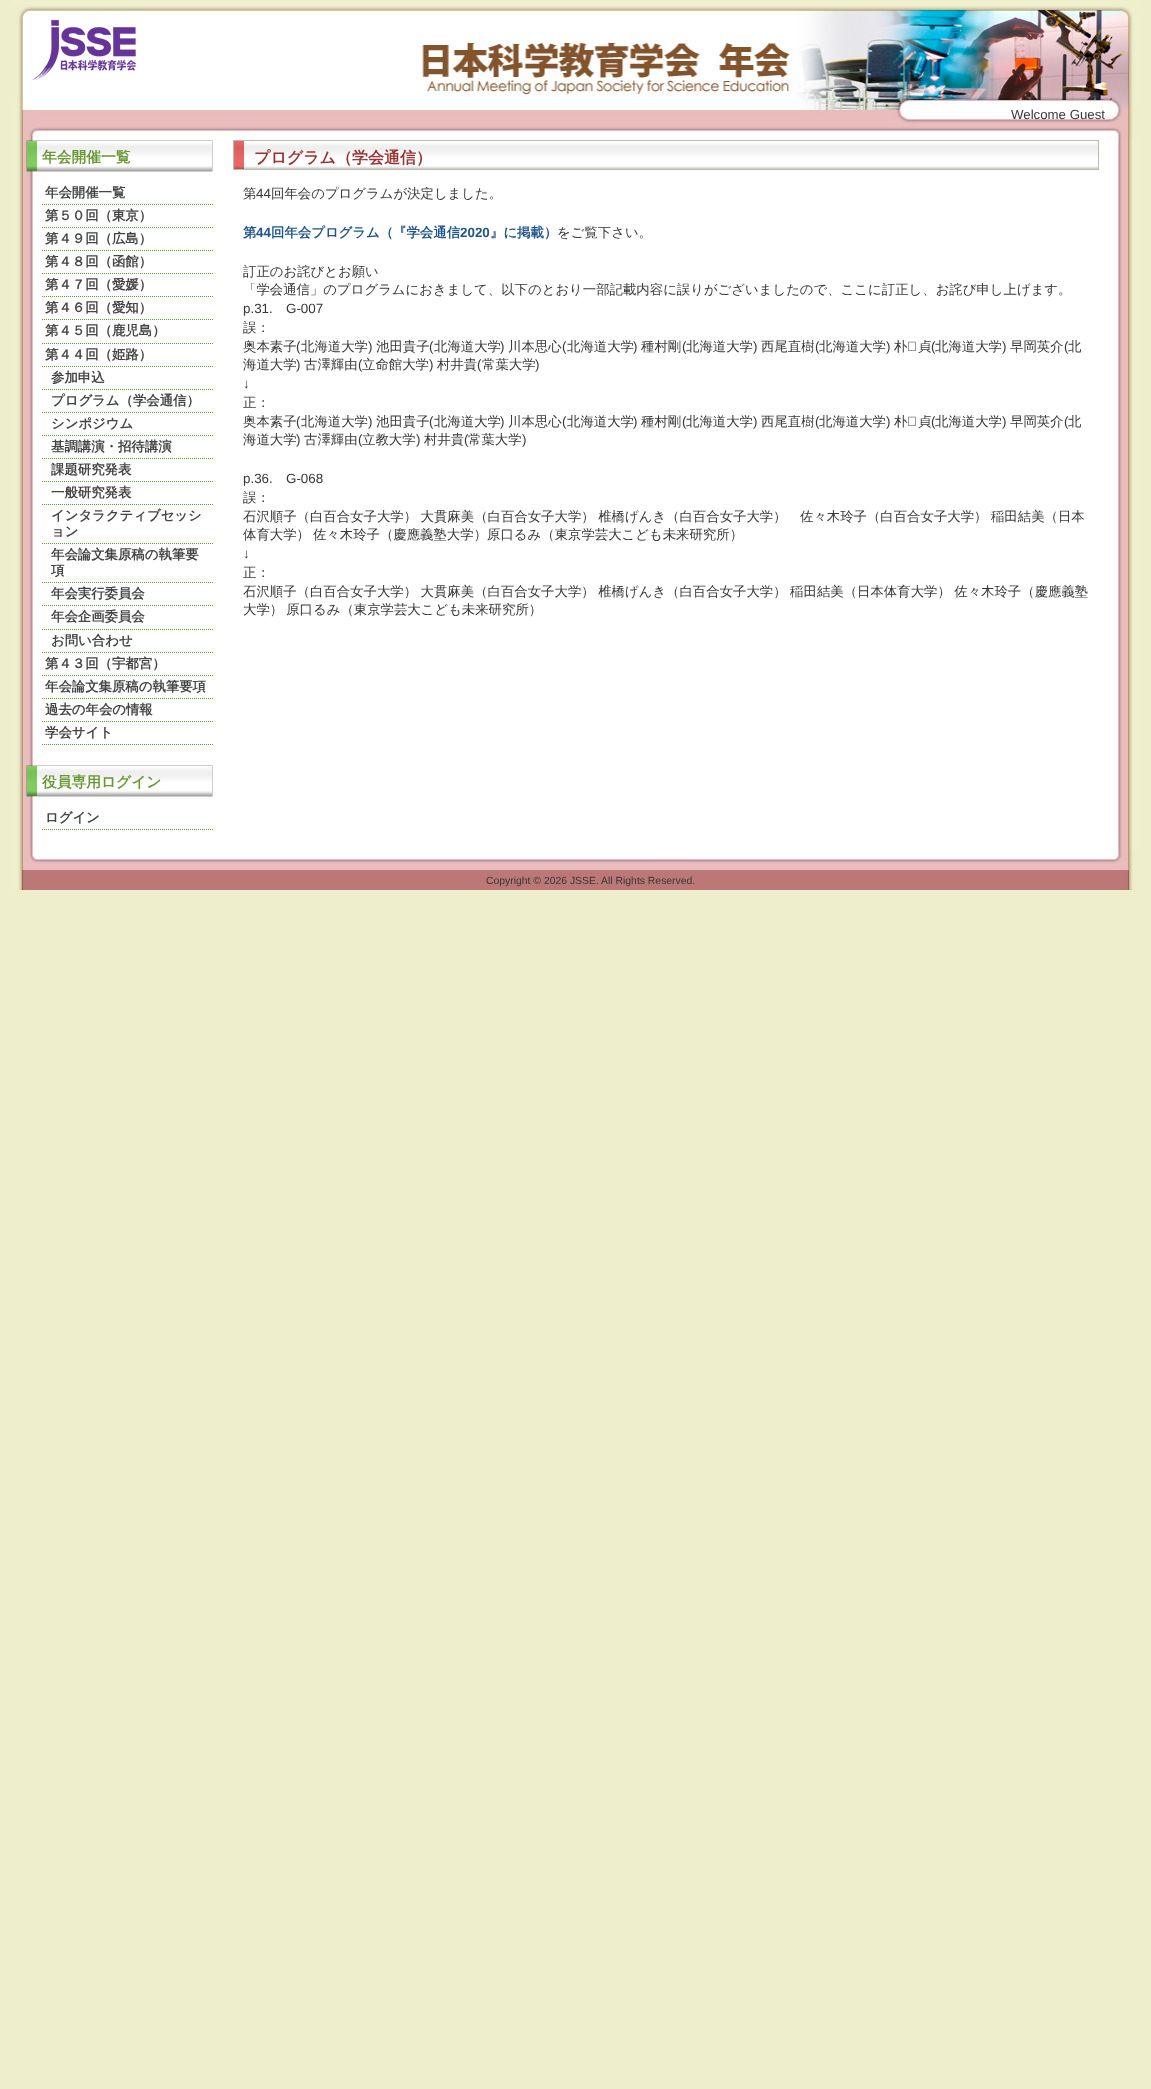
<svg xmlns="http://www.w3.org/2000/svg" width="1151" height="2089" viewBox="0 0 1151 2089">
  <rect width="100%" height="100%" fill="rgb(238,238,204)"/>
  <image x="12" y="0" width="1127" height="100" href="pic1.png"/>
  <image x="12" y="6" width="130" height="94" href="pic2.png"/>
  <image x="12" y="100" width="28" height="40" href="pic3.png"/>
  <image x="40" y="100" width="1093" height="40" href="pic4.png"/>
  <text x="1011" y="119" font-family="Liberation Sans" font-size="13.25" fill="rgb(55,55,55)">Welcome Guest</text>
  <rect x="42" y="140" width="1067" height="710" fill="rgb(255,255,255)"/>
  <image x="12" y="140" width="1127" height="710" href="pic5.png"/>
  <image x="20" y="140" width="193" height="32" href="pic6.png"/>
  <text x="42" y="162" font-family="WenQuanYi Zen Hei" font-size="14.75" font-weight="bold" fill="rgb(102,153,51)">年会開催一覧</text>
  <path d="M42 204.5H213" fill="none" stroke="rgb(102,153,51)" stroke-dasharray="1 1"/>
  <text x="45" y="197" font-family="WenQuanYi Zen Hei" font-size="13.4" font-weight="bold" fill="rgb(68,68,68)">年会開催一覧</text>
  <path d="M42 227.5H213" fill="none" stroke="rgb(102,153,51)" stroke-dasharray="1 1"/>
  <text x="45" y="220" font-family="WenQuanYi Zen Hei" font-size="13.4" font-weight="bold" fill="rgb(68,68,68)">第５０回（東京）</text>
  <path d="M42 250.5H213" fill="none" stroke="rgb(102,153,51)" stroke-dasharray="1 1"/>
  <text x="45" y="243" font-family="WenQuanYi Zen Hei" font-size="13.4" font-weight="bold" fill="rgb(68,68,68)">第４９回（広島）</text>
  <path d="M42 273.5H213" fill="none" stroke="rgb(102,153,51)" stroke-dasharray="1 1"/>
  <text x="45" y="266" font-family="WenQuanYi Zen Hei" font-size="13.4" font-weight="bold" fill="rgb(68,68,68)">第４８回（函館）</text>
  <path d="M42 296.5H213" fill="none" stroke="rgb(102,153,51)" stroke-dasharray="1 1"/>
  <text x="45" y="289" font-family="WenQuanYi Zen Hei" font-size="13.4" font-weight="bold" fill="rgb(68,68,68)">第４７回（愛媛）</text>
  <path d="M42 319.5H213" fill="none" stroke="rgb(102,153,51)" stroke-dasharray="1 1"/>
  <text x="45" y="312" font-family="WenQuanYi Zen Hei" font-size="13.4" font-weight="bold" fill="rgb(68,68,68)">第４６回（愛知）</text>
  <path d="M42 343.5H213" fill="none" stroke="rgb(102,153,51)" stroke-dasharray="1 1"/>
  <text x="45" y="335" font-family="WenQuanYi Zen Hei" font-size="13.4" font-weight="bold" fill="rgb(68,68,68)">第４５回（鹿児島）</text>
  <path d="M42 366.5H213" fill="none" stroke="rgb(102,153,51)" stroke-dasharray="1 1"/>
  <text x="45" y="359" font-family="WenQuanYi Zen Hei" font-size="13.4" font-weight="bold" fill="rgb(68,68,68)">第４４回（姫路）</text>
  <path d="M42 389.5H213" fill="none" stroke="rgb(102,153,51)" stroke-dasharray="1 1"/>
  <text x="51" y="382" font-family="WenQuanYi Zen Hei" font-size="13.4" font-weight="bold" fill="rgb(68,68,68)">参加申込</text>
  <path d="M42 412.5H213" fill="none" stroke="rgb(102,153,51)" stroke-dasharray="1 1"/>
  <text x="51" y="405" font-family="WenQuanYi Zen Hei" font-size="13.4" font-weight="bold" fill="rgb(68,68,68)">プログラム（学会通信）</text>
  <path d="M42 435.5H213" fill="none" stroke="rgb(102,153,51)" stroke-dasharray="1 1"/>
  <text x="51" y="428" font-family="WenQuanYi Zen Hei" font-size="13.4" font-weight="bold" fill="rgb(68,68,68)">シンポジウム</text>
  <path d="M42 458.5H213" fill="none" stroke="rgb(102,153,51)" stroke-dasharray="1 1"/>
  <text x="51" y="451" font-family="WenQuanYi Zen Hei" font-size="13.4" font-weight="bold" fill="rgb(68,68,68)">基調講演・招待講演</text>
  <path d="M42 481.5H213" fill="none" stroke="rgb(102,153,51)" stroke-dasharray="1 1"/>
  <text x="51" y="474" font-family="WenQuanYi Zen Hei" font-size="13.4" font-weight="bold" fill="rgb(68,68,68)">課題研究発表</text>
  <path d="M42 504.5H213" fill="none" stroke="rgb(102,153,51)" stroke-dasharray="1 1"/>
  <text x="51" y="497" font-family="WenQuanYi Zen Hei" font-size="13.4" font-weight="bold" fill="rgb(68,68,68)">一般研究発表</text>
  <path d="M42 543.5H213" fill="none" stroke="rgb(102,153,51)" stroke-dasharray="1 1"/>
  <g font-family="WenQuanYi Zen Hei" font-size="13.4" font-weight="bold" fill="rgb(68,68,68)">
    <text>
      <tspan x="51" y="520">インタラクティブセッシ</tspan>
      <tspan x="51" y="536">ョン</tspan>
    </text>
  </g>
  <path d="M42 582.5H213" fill="none" stroke="rgb(102,153,51)" stroke-dasharray="1 1"/>
  <g font-family="WenQuanYi Zen Hei" font-size="13.4" font-weight="bold" fill="rgb(68,68,68)">
    <text>
      <tspan x="51" y="559">年会論文集原稿の執筆要</tspan>
      <tspan x="51" y="575">項</tspan>
    </text>
  </g>
  <path d="M42 605.5H213" fill="none" stroke="rgb(102,153,51)" stroke-dasharray="1 1"/>
  <text x="51" y="598" font-family="WenQuanYi Zen Hei" font-size="13.4" font-weight="bold" fill="rgb(68,68,68)">年会実行委員会</text>
  <path d="M42 629.5H213" fill="none" stroke="rgb(102,153,51)" stroke-dasharray="1 1"/>
  <text x="51" y="621" font-family="WenQuanYi Zen Hei" font-size="13.4" font-weight="bold" fill="rgb(68,68,68)">年会企画委員会</text>
  <path d="M42 652.5H213" fill="none" stroke="rgb(102,153,51)" stroke-dasharray="1 1"/>
  <text x="51" y="645" font-family="WenQuanYi Zen Hei" font-size="13.4" font-weight="bold" fill="rgb(68,68,68)">お問い合わせ</text>
  <path d="M42 675.5H213" fill="none" stroke="rgb(102,153,51)" stroke-dasharray="1 1"/>
  <text x="45" y="668" font-family="WenQuanYi Zen Hei" font-size="13.4" font-weight="bold" fill="rgb(68,68,68)">第４３回（宇都宮）</text>
  <path d="M42 698.5H213" fill="none" stroke="rgb(102,153,51)" stroke-dasharray="1 1"/>
  <text x="45" y="691" font-family="WenQuanYi Zen Hei" font-size="13.4" font-weight="bold" fill="rgb(68,68,68)">年会論文集原稿の執筆要項</text>
  <path d="M42 721.5H213" fill="none" stroke="rgb(102,153,51)" stroke-dasharray="1 1"/>
  <text x="45" y="714" font-family="WenQuanYi Zen Hei" font-size="13.4" font-weight="bold" fill="rgb(68,68,68)">過去の年会の情報</text>
  <path d="M42 744.5H213" fill="none" stroke="rgb(102,153,51)" stroke-dasharray="1 1"/>
  <text x="45" y="737" font-family="WenQuanYi Zen Hei" font-size="13.4" font-weight="bold" fill="rgb(68,68,68)">学会サイト</text>
  <image x="20" y="765" width="193" height="32" href="pic6.png"/>
  <text x="42" y="787" font-family="WenQuanYi Zen Hei" font-size="14.75" font-weight="bold" fill="rgb(102,153,51)">役員専用ログイン</text>
  <path d="M42 829.5H213" fill="none" stroke="rgb(102,153,51)" stroke-dasharray="1 1"/>
  <text x="45" y="822" font-family="WenQuanYi Zen Hei" font-size="13.4" font-weight="bold" fill="rgb(68,68,68)">ログイン</text>
  <image x="234" y="141" width="864" height="28" href="pic7.png"/>
  <rect x="233.5" y="140.5" width="865" height="29" fill="none" stroke="rgb(187,187,170)"/>
  <text x="254" y="163" font-family="WenQuanYi Zen Hei" font-size="16" font-weight="bold" fill="rgb(153,51,51)">プログラム（学会通信）</text>
  <text x="243" y="198" font-family="WenQuanYi Zen Hei" font-size="13.4" font-weight="500" fill="rgb(55,55,55)">第</text>
  <text x="256" y="198" font-family="Liberation Sans" font-size="13.4" fill="rgb(55,55,55)">44</text>
  <text x="271" y="198" font-family="WenQuanYi Zen Hei" font-size="13.4" font-weight="500" fill="rgb(55,55,55)">回年会のプログラムが決定しました。</text>
  <text x="243" y="237" font-family="WenQuanYi Zen Hei" font-size="13.4" font-weight="bold" fill="rgb(34,85,136)">第</text>
  <text x="256" y="237" font-family="Liberation Sans" font-size="13.4" font-weight="bold" fill="rgb(34,85,136)">44</text>
  <text x="271" y="237" font-family="WenQuanYi Zen Hei" font-size="13.4" font-weight="bold" fill="rgb(34,85,136)">回年会プログラム（『学会通信</text>
  <text x="460" y="237" font-family="Liberation Sans" font-size="13.4" font-weight="bold" fill="rgb(34,85,136)">2020</text>
  <text x="490" y="237" font-family="WenQuanYi Zen Hei" font-size="13.4" font-weight="bold" fill="rgb(34,85,136)">』に掲載）</text>
  <g font-family="WenQuanYi Zen Hei" font-size="13.4" font-weight="500" fill="rgb(55,55,55)">
    <text x="557" y="237">をご覧下さい。</text>
    <text>
      <tspan x="243" y="276">訂正のお詫びとお願い</tspan>
      <tspan x="243" y="294">「学会通信」のプログラムにおきまして、以下のとおり一部記載内容に誤りがございましたので、ここに訂正し、お詫び申し上げます。</tspan>
    </text>
  </g>
  <g font-family="Liberation Sans" font-size="13.4" fill="rgb(55,55,55)">
    <text x="243" y="313">p.31.</text>
    <text x="286" y="313">G-007</text>
  </g>
  <g font-family="WenQuanYi Zen Hei" font-size="13.4" font-weight="500" fill="rgb(55,55,55)">
    <text>
      <tspan x="243" y="332">誤：</tspan>
      <tspan x="243" y="351">奥本素子</tspan>
    </text>
  </g>
  <text x="296" y="351" font-family="Liberation Sans" font-size="13.4" fill="rgb(55,55,55)">(</text>
  <text x="301" y="351" font-family="WenQuanYi Zen Hei" font-size="13.4" font-weight="500" fill="rgb(55,55,55)">北海道大学</text>
  <text x="368" y="351" font-family="Liberation Sans" font-size="13.4" fill="rgb(55,55,55)">)</text>
  <text x="376" y="351" font-family="WenQuanYi Zen Hei" font-size="13.4" font-weight="500" fill="rgb(55,55,55)">池田貴子</text>
  <text x="429" y="351" font-family="Liberation Sans" font-size="13.4" fill="rgb(55,55,55)">(</text>
  <text x="434" y="351" font-family="WenQuanYi Zen Hei" font-size="13.4" font-weight="500" fill="rgb(55,55,55)">北海道大学</text>
  <text x="500" y="351" font-family="Liberation Sans" font-size="13.4" fill="rgb(55,55,55)">)</text>
  <text x="508" y="351" font-family="WenQuanYi Zen Hei" font-size="13.4" font-weight="500" fill="rgb(55,55,55)">川本思心</text>
  <text x="562" y="351" font-family="Liberation Sans" font-size="13.4" fill="rgb(55,55,55)">(</text>
  <text x="567" y="351" font-family="WenQuanYi Zen Hei" font-size="13.4" font-weight="500" fill="rgb(55,55,55)">北海道大学</text>
  <text x="633" y="351" font-family="Liberation Sans" font-size="13.4" fill="rgb(55,55,55)">)</text>
  <text x="641" y="351" font-family="WenQuanYi Zen Hei" font-size="13.4" font-weight="500" fill="rgb(55,55,55)">種村剛</text>
  <text x="682" y="351" font-family="Liberation Sans" font-size="13.4" fill="rgb(55,55,55)">(</text>
  <text x="686" y="351" font-family="WenQuanYi Zen Hei" font-size="13.4" font-weight="500" fill="rgb(55,55,55)">北海道大学</text>
  <text x="753" y="351" font-family="Liberation Sans" font-size="13.4" fill="rgb(55,55,55)">)</text>
  <text x="761" y="351" font-family="WenQuanYi Zen Hei" font-size="13.4" font-weight="500" fill="rgb(55,55,55)">西尾直樹</text>
  <text x="815" y="351" font-family="Liberation Sans" font-size="13.4" fill="rgb(55,55,55)">(</text>
  <text x="819" y="351" font-family="WenQuanYi Zen Hei" font-size="13.4" font-weight="500" fill="rgb(55,55,55)">北海道大学</text>
  <text x="886" y="351" font-family="Liberation Sans" font-size="13.4" fill="rgb(55,55,55)">)</text>
  <text x="894" y="351" font-family="WenQuanYi Zen Hei" font-size="13.4" font-weight="500" fill="rgb(55,55,55)">朴</text>
  <image x="908" y="341" width="8" height="10" href="pic8.png"/>
  <text x="918" y="351" font-family="WenQuanYi Zen Hei" font-size="13.4" font-weight="500" fill="rgb(55,55,55)">貞</text>
  <text x="931" y="351" font-family="Liberation Sans" font-size="13.4" fill="rgb(55,55,55)">(</text>
  <text x="935" y="351" font-family="WenQuanYi Zen Hei" font-size="13.4" font-weight="500" fill="rgb(55,55,55)">北海道大学</text>
  <text x="1002" y="351" font-family="Liberation Sans" font-size="13.4" fill="rgb(55,55,55)">)</text>
  <text x="1010" y="351" font-family="WenQuanYi Zen Hei" font-size="13.4" font-weight="500" fill="rgb(55,55,55)">早岡英介</text>
  <text x="1064" y="351" font-family="Liberation Sans" font-size="13.4" fill="rgb(55,55,55)">(</text>
  <g font-family="WenQuanYi Zen Hei" font-size="13.4" font-weight="500" fill="rgb(55,55,55)">
    <text x="1068" y="351">北</text>
    <text x="243" y="369">海道大学</text>
  </g>
  <text x="296" y="369" font-family="Liberation Sans" font-size="13.4" fill="rgb(55,55,55)">)</text>
  <text x="304" y="369" font-family="WenQuanYi Zen Hei" font-size="13.4" font-weight="500" fill="rgb(55,55,55)">古澤輝由</text>
  <text x="358" y="369" font-family="Liberation Sans" font-size="13.4" fill="rgb(55,55,55)">(</text>
  <text x="362" y="369" font-family="WenQuanYi Zen Hei" font-size="13.4" font-weight="500" fill="rgb(55,55,55)">立命館大学</text>
  <text x="429" y="369" font-family="Liberation Sans" font-size="13.4" fill="rgb(55,55,55)">)</text>
  <text x="437" y="369" font-family="WenQuanYi Zen Hei" font-size="13.4" font-weight="500" fill="rgb(55,55,55)">村井貴</text>
  <text x="477" y="369" font-family="Liberation Sans" font-size="13.4" fill="rgb(55,55,55)">(</text>
  <text x="482" y="369" font-family="WenQuanYi Zen Hei" font-size="13.4" font-weight="500" fill="rgb(55,55,55)">常葉大学</text>
  <g font-family="Liberation Sans" font-size="13.4" fill="rgb(55,55,55)">
    <text x="535" y="369">)</text>
    <text x="243" y="388">↓</text>
  </g>
  <g font-family="WenQuanYi Zen Hei" font-size="13.4" font-weight="500" fill="rgb(55,55,55)">
    <text>
      <tspan x="243" y="407">正：</tspan>
      <tspan x="243" y="426">奥本素子</tspan>
    </text>
  </g>
  <text x="296" y="426" font-family="Liberation Sans" font-size="13.4" fill="rgb(55,55,55)">(</text>
  <text x="301" y="426" font-family="WenQuanYi Zen Hei" font-size="13.4" font-weight="500" fill="rgb(55,55,55)">北海道大学</text>
  <text x="368" y="426" font-family="Liberation Sans" font-size="13.4" fill="rgb(55,55,55)">)</text>
  <text x="376" y="426" font-family="WenQuanYi Zen Hei" font-size="13.4" font-weight="500" fill="rgb(55,55,55)">池田貴子</text>
  <text x="429" y="426" font-family="Liberation Sans" font-size="13.4" fill="rgb(55,55,55)">(</text>
  <text x="434" y="426" font-family="WenQuanYi Zen Hei" font-size="13.4" font-weight="500" fill="rgb(55,55,55)">北海道大学</text>
  <text x="500" y="426" font-family="Liberation Sans" font-size="13.4" fill="rgb(55,55,55)">)</text>
  <text x="508" y="426" font-family="WenQuanYi Zen Hei" font-size="13.4" font-weight="500" fill="rgb(55,55,55)">川本思心</text>
  <text x="562" y="426" font-family="Liberation Sans" font-size="13.4" fill="rgb(55,55,55)">(</text>
  <text x="567" y="426" font-family="WenQuanYi Zen Hei" font-size="13.4" font-weight="500" fill="rgb(55,55,55)">北海道大学</text>
  <text x="633" y="426" font-family="Liberation Sans" font-size="13.4" fill="rgb(55,55,55)">)</text>
  <text x="641" y="426" font-family="WenQuanYi Zen Hei" font-size="13.4" font-weight="500" fill="rgb(55,55,55)">種村剛</text>
  <text x="682" y="426" font-family="Liberation Sans" font-size="13.4" fill="rgb(55,55,55)">(</text>
  <text x="686" y="426" font-family="WenQuanYi Zen Hei" font-size="13.4" font-weight="500" fill="rgb(55,55,55)">北海道大学</text>
  <text x="753" y="426" font-family="Liberation Sans" font-size="13.4" fill="rgb(55,55,55)">)</text>
  <text x="761" y="426" font-family="WenQuanYi Zen Hei" font-size="13.4" font-weight="500" fill="rgb(55,55,55)">西尾直樹</text>
  <text x="815" y="426" font-family="Liberation Sans" font-size="13.4" fill="rgb(55,55,55)">(</text>
  <text x="819" y="426" font-family="WenQuanYi Zen Hei" font-size="13.4" font-weight="500" fill="rgb(55,55,55)">北海道大学</text>
  <text x="886" y="426" font-family="Liberation Sans" font-size="13.4" fill="rgb(55,55,55)">)</text>
  <text x="894" y="426" font-family="WenQuanYi Zen Hei" font-size="13.4" font-weight="500" fill="rgb(55,55,55)">朴</text>
  <image x="908" y="416" width="8" height="10" href="pic8.png"/>
  <text x="918" y="426" font-family="WenQuanYi Zen Hei" font-size="13.4" font-weight="500" fill="rgb(55,55,55)">貞</text>
  <text x="931" y="426" font-family="Liberation Sans" font-size="13.4" fill="rgb(55,55,55)">(</text>
  <text x="935" y="426" font-family="WenQuanYi Zen Hei" font-size="13.4" font-weight="500" fill="rgb(55,55,55)">北海道大学</text>
  <text x="1002" y="426" font-family="Liberation Sans" font-size="13.4" fill="rgb(55,55,55)">)</text>
  <text x="1010" y="426" font-family="WenQuanYi Zen Hei" font-size="13.4" font-weight="500" fill="rgb(55,55,55)">早岡英介</text>
  <text x="1064" y="426" font-family="Liberation Sans" font-size="13.4" fill="rgb(55,55,55)">(</text>
  <g font-family="WenQuanYi Zen Hei" font-size="13.4" font-weight="500" fill="rgb(55,55,55)">
    <text x="1068" y="426">北</text>
    <text x="243" y="444">海道大学</text>
  </g>
  <text x="296" y="444" font-family="Liberation Sans" font-size="13.4" fill="rgb(55,55,55)">)</text>
  <text x="304" y="444" font-family="WenQuanYi Zen Hei" font-size="13.4" font-weight="500" fill="rgb(55,55,55)">古澤輝由</text>
  <text x="358" y="444" font-family="Liberation Sans" font-size="13.4" fill="rgb(55,55,55)">(</text>
  <text x="362" y="444" font-family="WenQuanYi Zen Hei" font-size="13.4" font-weight="500" fill="rgb(55,55,55)">立教大学</text>
  <text x="416" y="444" font-family="Liberation Sans" font-size="13.4" fill="rgb(55,55,55)">)</text>
  <text x="424" y="444" font-family="WenQuanYi Zen Hei" font-size="13.4" font-weight="500" fill="rgb(55,55,55)">村井貴</text>
  <text x="464" y="444" font-family="Liberation Sans" font-size="13.4" fill="rgb(55,55,55)">(</text>
  <text x="468" y="444" font-family="WenQuanYi Zen Hei" font-size="13.4" font-weight="500" fill="rgb(55,55,55)">常葉大学</text>
  <g font-family="Liberation Sans" font-size="13.4" fill="rgb(55,55,55)">
    <text x="522" y="444">)</text>
    <text x="243" y="483">p.36.</text>
    <text x="286" y="483">G-068</text>
  </g>
  <g font-family="WenQuanYi Zen Hei" font-size="13.4" font-weight="500" fill="rgb(55,55,55)">
    <text>
      <tspan x="243" y="502">誤：</tspan>
      <tspan x="243" y="521" word-spacing="-0.5">石沢順子（白百合女子大学） 大貫麻美（白百合女子大学） 椎橋げんき（白百合女子大学）　佐々木玲子（白百合女子大学） 稲田結美（日本</tspan>
      <tspan x="243" y="539" word-spacing="-1">体育大学） 佐々木玲子（慶應義塾大学）原口るみ（東京学芸大こども未来研究所）</tspan>
    </text>
  </g>
  <text x="243" y="558" font-family="Liberation Sans" font-size="13.4" fill="rgb(55,55,55)">↓</text>
  <g font-family="WenQuanYi Zen Hei" font-size="13.4" font-weight="500" fill="rgb(55,55,55)">
    <text>
      <tspan x="243" y="577">正：</tspan>
      <tspan x="243" y="596" word-spacing="-0.5">石沢順子（白百合女子大学） 大貫麻美（白百合女子大学） 椎橋げんき（白百合女子大学） 稲田結美（日本体育大学） 佐々木玲子（慶應義塾</tspan>
      <tspan x="243" y="614" word-spacing="-1">大学） 原口るみ（東京学芸大こども未来研究所）</tspan>
    </text>
  </g>
  <image x="43" y="850" width="1091" height="40" href="pic9.png"/>
  <image x="12" y="850" width="31" height="40" href="pic10.png"/>
  <text x="486" y="884" font-family="Liberation Sans" font-size="10.4" fill="rgb(55,55,55)">Copyright © 2026 JSSE. All Rights Reserved.</text>
</svg>
